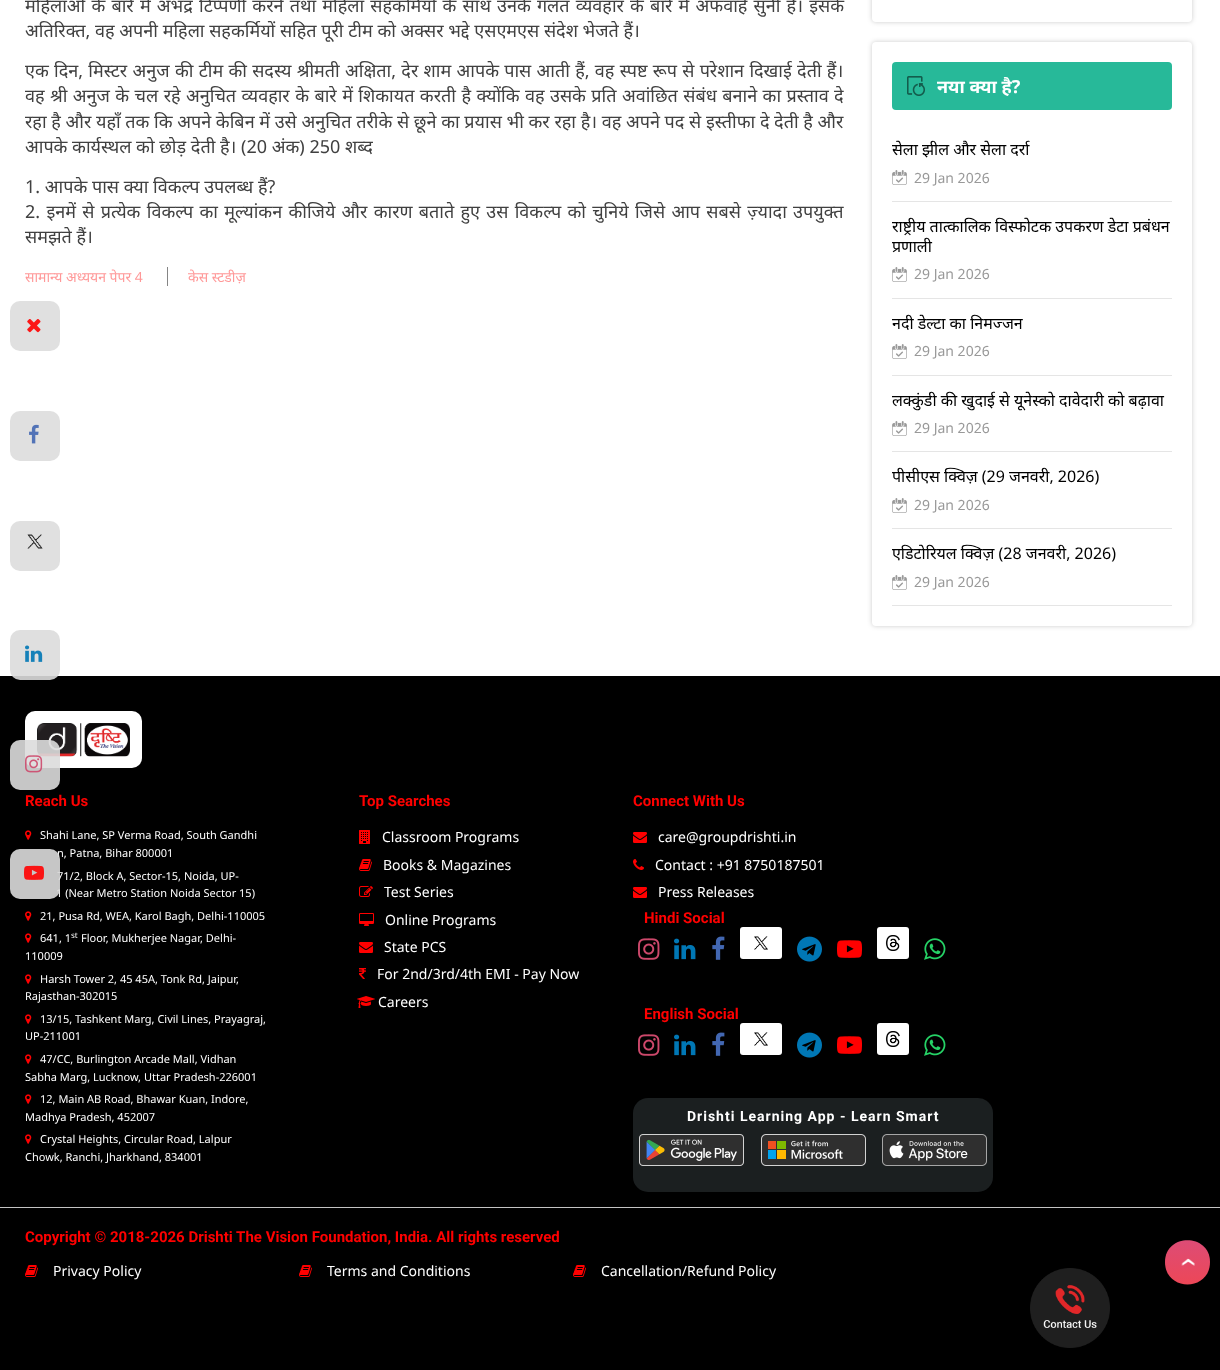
<svg xmlns="http://www.w3.org/2000/svg" width="1220" height="1370" viewBox="0 0 1220 1370">
  <defs>
    <linearGradient id="g1" gradientUnits="userSpaceOnUse" x1="1188" y1="1285" x2="1188" y2="1240"><stop offset="0" stop-color="rgb(237,71,87)"/><stop offset="1" stop-color="rgb(221,76,118)"/></linearGradient>
  </defs>
  <rect width="100%" height="100%" fill="rgb(255,255,255)"/>
  <g font-family="Noto Sans" font-size="18" fill="rgb(64,64,64)">
    <text>
      <tspan x="25" y="12" word-spacing="1.5">महिलाओं के बारे में अभद्र टिप्पणी करने तथा महिला सहकर्मियों के साथ उनके गलत व्यवहार के बारे में अफवाहें सुनी हैं। इसके</tspan>
      <tspan x="25" y="37">अतिरिक्त, वह अपनी महिला सहकर्मियों सहित पूरी टीम को अक्सर भद्दे एसएमएस संदेश भेजते हैं।</tspan>
    </text>
    <text>
      <tspan x="25" y="77" word-spacing="0.6">एक दिन, मिस्टर अनुज की टीम की सदस्य श्रीमती अक्षिता, देर शाम आपके पास आती हैं, वह स्पष्ट रूप से परेशान दिखाई देती हैं।</tspan>
      <tspan x="25" y="102" word-spacing="0.75">वह श्री अनुज के चल रहे अनुचित व्यवहार के बारे में शिकायत करती है क्योंकि वह उसके प्रति अवांछित संबंध बनाने का प्रस्ताव दे</tspan>
      <tspan x="25" y="128">रहा है और यहाँ तक कि अपने केबिन में उसे अनुचित तरीके से छूने का प्रयास भी कर रहा है। वह अपने पद से इस्तीफा दे देती है और</tspan>
      <tspan x="25" y="153">आपके कार्यस्थल को छोड़ देती है। (20 अंक) 250 शब्द</tspan>
    </text>
    <text>
      <tspan x="25" y="193">1. आपके पास क्या विकल्प उपलब्ध हैं?</tspan>
      <tspan x="25" y="218" word-spacing="1.6">2. इनमें से प्रत्येक विकल्प का मूल्यांकन कीजिये और कारण बताते हुए उस विकल्प को चुनिये जिसे आप सबसे ज़्यादा उपयुक्त</tspan>
      <tspan x="25" y="243">समझते हैं।</tspan>
    </text>
  </g>
  <text x="25" y="282" font-family="Noto Sans" font-size="14" fill="rgb(255,152,152)">सामान्य अध्ययन पेपर 4</text>
  <rect x="167" y="267" width="1" height="19" fill="rgb(133,133,133)"/>
  <text x="188" y="282" font-family="Noto Sans" font-size="14" fill="rgb(255,152,152)">केस स्टडीज़</text>
  <rect x="872" y="-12" width="320" height="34" rx="4" fill="rgba(0,0,0,0.2)" filter="blur(2.5px)"/>
  <rect x="872" y="-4" width="320" height="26" rx="4" fill="rgb(255,255,255)"/>
  <rect x="872" y="42" width="320" height="584" rx="4" fill="rgba(0,0,0,0.2)" filter="blur(2.5px)"/>
  <rect x="872" y="42" width="320" height="584" rx="4" fill="rgb(255,255,255)"/>
  <rect x="892" y="62" width="280" height="48" rx="4" fill="rgb(39,185,153)"/>
  <image x="907" y="76" width="18" height="20" href="pic1.png"/>
  <text x="937" y="93" font-family="Noto Sans" font-size="18" font-weight="bold" fill="rgb(255,255,255)">नया क्या है?</text>
  <rect x="892" y="201" width="280" height="1" fill="rgb(229,229,229)"/>
  <text x="892" y="155" font-family="Noto Sans" font-size="16" fill="rgb(0,0,0)">सेला झील और सेला दर्रा</text>
  <image x="892" y="170" width="15" height="15" href="pic2.png"/>
  <text x="914" y="183" font-family="Noto Sans" font-size="14" fill="rgb(153,153,153)">29 Jan 2026</text>
  <rect x="892" y="298" width="280" height="1" fill="rgb(229,229,229)"/>
  <g font-family="Noto Sans" font-size="16" fill="rgb(0,0,0)">
    <text>
      <tspan x="892" y="232">राष्ट्रीय तात्कालिक विस्फोटक उपकरण डेटा प्रबंधन</tspan>
      <tspan x="892" y="252">प्रणाली</tspan>
    </text>
  </g>
  <image x="892" y="267" width="15" height="15" href="pic2.png"/>
  <text x="914" y="279" font-family="Noto Sans" font-size="14" fill="rgb(153,153,153)">29 Jan 2026</text>
  <rect x="892" y="375" width="280" height="1" fill="rgb(229,229,229)"/>
  <text x="892" y="329" font-family="Noto Sans" font-size="16" fill="rgb(0,0,0)">नदी डेल्टा का निमज्जन</text>
  <image x="892" y="344" width="15" height="15" href="pic2.png"/>
  <text x="914" y="356" font-family="Noto Sans" font-size="14" fill="rgb(153,153,153)">29 Jan 2026</text>
  <rect x="892" y="451" width="280" height="1" fill="rgb(229,229,229)"/>
  <text x="892" y="406" font-family="Noto Sans" font-size="16" fill="rgb(0,0,0)">लक्कुंडी की खुदाई से यूनेस्को दावेदारी को बढ़ावा</text>
  <image x="892" y="421" width="15" height="15" href="pic2.png"/>
  <text x="914" y="433" font-family="Noto Sans" font-size="14" fill="rgb(153,153,153)">29 Jan 2026</text>
  <rect x="892" y="528" width="280" height="1" fill="rgb(229,229,229)"/>
  <text x="892" y="482" font-family="Noto Sans" font-size="16" fill="rgb(0,0,0)">पीसीएस क्विज़ (29 जनवरी, 2026)</text>
  <image x="892" y="498" width="15" height="15" href="pic2.png"/>
  <text x="914" y="510" font-family="Noto Sans" font-size="14" fill="rgb(153,153,153)">29 Jan 2026</text>
  <rect x="892" y="605" width="280" height="1" fill="rgb(229,229,229)"/>
  <text x="892" y="559" font-family="Noto Sans" font-size="16" fill="rgb(0,0,0)">एडिटोरियल क्विज़ (28 जनवरी, 2026)</text>
  <image x="892" y="575" width="15" height="15" href="pic2.png"/>
  <text x="914" y="587" font-family="Noto Sans" font-size="14" fill="rgb(153,153,153)">29 Jan 2026</text>
  <rect x="10" y="301" width="50" height="50" rx="10" fill="rgb(224,224,224)"/>
  <image x="27" y="319" width="14" height="14" href="pic3.png"/>
  <rect x="10" y="411" width="50" height="50" rx="10" fill="rgb(224,224,224)"/>
  <image x="29" y="424" width="10" height="20" href="pic4.png"/>
  <rect x="10" y="521" width="50" height="50" rx="10" fill="rgb(224,224,224)"/>
  <image x="27" y="534" width="16" height="15" href="pic5.png"/>
  <rect x="0" y="676" width="1220" height="694" fill="rgb(0,0,0)"/>
  <rect x="10" y="630" width="50" height="50" rx="10" fill="rgba(220,220,220,0.9)"/>
  <image x="25" y="645" width="18" height="17" href="pic6.png"/>
  <rect x="25" y="711" width="117" height="57" rx="10" fill="rgb(255,255,255)"/>
  <image x="37" y="723" width="93" height="34" href="pic9.png"/>
  <rect x="10" y="740" width="50" height="50" rx="10" fill="rgba(220,220,220,0.9)"/>
  <image x="25" y="755" width="18" height="18" href="pic7.png"/>
  <text x="57" y="857" font-family="Noto Sans" font-size="11" fill="rgb(255,255,255)">n, Patna, Bihar 800001</text>
  <image x="25" y="871" width="7" height="10" href="pic10.png"/>
  <g font-family="Noto Sans" font-size="11" fill="rgb(255,255,255)">
    <text x="57" y="880">71/2, Block A, Sector-15, Noida, UP-</text>
    <text x="56" y="897">1 (Near Metro Station Noida Sector 15)</text>
  </g>
  <rect x="10" y="849" width="50" height="50" rx="10" fill="rgba(220,220,220,0.9)"/>
  <image x="24" y="865" width="20" height="15" href="pic8.png"/>
  <text x="25" y="806" font-family="Roboto" font-size="15" font-weight="bold" fill="rgb(255,0,0)">Reach Us</text>
  <image x="25" y="830" width="7" height="10" href="pic10.png"/>
  <text x="40" y="839" font-family="Noto Sans" font-size="11" fill="rgb(255,255,255)">Shahi Lane, SP Verma Road, South Gandhi</text>
  <image x="25" y="911" width="7" height="10" href="pic10.png"/>
  <text x="40" y="920" font-family="Noto Sans" font-size="11" fill="rgb(255,255,255)">21, Pusa Rd, WEA, Karol Bagh, Delhi-110005</text>
  <image x="25" y="933" width="7" height="10" href="pic10.png"/>
  <text x="40" y="942" font-family="Noto Sans" font-size="11" fill="rgb(255,255,255)">641, 1</text>
  <text x="71" y="938" font-family="Noto Sans" font-size="8" fill="rgb(255,255,255)">st</text>
  <g font-family="Noto Sans" font-size="11" fill="rgb(255,255,255)">
    <text x="81" y="942">Floor, Mukherjee Nagar, Delhi-</text>
    <text x="25" y="960">110009</text>
  </g>
  <image x="25" y="974" width="7" height="10" href="pic10.png"/>
  <g font-family="Noto Sans" font-size="11" fill="rgb(255,255,255)">
    <text x="40" y="983">Harsh Tower 2, 45 45A, Tonk Rd, Jaipur,</text>
    <text x="25" y="1000">Rajasthan-302015</text>
  </g>
  <image x="25" y="1014" width="7" height="10" href="pic10.png"/>
  <g font-family="Noto Sans" font-size="11" fill="rgb(255,255,255)">
    <text x="40" y="1023">13/15, Tashkent Marg, Civil Lines, Prayagraj,</text>
    <text x="25" y="1040">UP-211001</text>
  </g>
  <image x="25" y="1054" width="7" height="10" href="pic10.png"/>
  <g font-family="Noto Sans" font-size="11" fill="rgb(255,255,255)">
    <text x="40" y="1063">47/CC, Burlington Arcade Mall, Vidhan</text>
    <text x="25" y="1081">Sabha Marg, Lucknow, Uttar Pradesh-226001</text>
  </g>
  <image x="25" y="1094" width="7" height="10" href="pic10.png"/>
  <g font-family="Noto Sans" font-size="11" fill="rgb(255,255,255)">
    <text x="40" y="1103">12, Main AB Road, Bhawar Kuan, Indore,</text>
    <text x="25" y="1121">Madhya Pradesh, 452007</text>
  </g>
  <image x="25" y="1134" width="7" height="10" href="pic10.png"/>
  <g font-family="Noto Sans" font-size="11" fill="rgb(255,255,255)">
    <text x="40" y="1143">Crystal Heights, Circular Road, Lalpur</text>
    <text x="25" y="1161">Chowk, Ranchi, Jharkhand, 834001</text>
  </g>
  <text x="359" y="806" font-family="Roboto" font-size="15" font-weight="bold" fill="rgb(255,0,0)">Top Searches</text>
  <image x="359" y="830" width="11" height="14" href="pic11.png"/>
  <text x="382" y="842" font-family="Noto Sans" font-size="14" fill="rgb(255,255,255)">Classroom Programs</text>
  <image x="359" y="859" width="13" height="12" href="pic12.png"/>
  <text x="383" y="870" font-family="Noto Sans" font-size="14" fill="rgb(255,255,255)">Books &amp; Magazines</text>
  <image x="359" y="886" width="14" height="11" href="pic13.png"/>
  <text x="384" y="897" font-family="Noto Sans" font-size="14" fill="rgb(255,255,255)">Test Series</text>
  <image x="359" y="913" width="15" height="13" href="pic14.png"/>
  <text x="385" y="925" font-family="Noto Sans" font-size="14" fill="rgb(255,255,255)">Online Programs</text>
  <image x="359" y="942" width="14" height="11" href="pic15.png"/>
  <text x="384" y="952" font-family="Noto Sans" font-size="14" fill="rgb(255,255,255)">State PCS</text>
  <image x="359" y="968" width="7" height="11" href="pic16.png"/>
  <text x="377" y="979" font-family="Noto Sans" font-size="14" fill="rgb(255,255,255)">For 2nd/3rd/4th EMI - Pay Now</text>
  <image x="357" y="996" width="18" height="12" href="pic17.png"/>
  <text x="378" y="1007" font-family="Noto Sans" font-size="14" fill="rgb(255,255,255)">Careers</text>
  <text x="633" y="806" font-family="Roboto" font-size="15" font-weight="bold" fill="rgb(255,0,0)">Connect With Us</text>
  <image x="633" y="832" width="14" height="11" href="pic15.png"/>
  <text x="658" y="842" font-family="Noto Sans" font-size="14" fill="rgb(255,255,255)">care@groupdrishti.in</text>
  <image x="633" y="859" width="11" height="11" href="pic18.png"/>
  <text x="655" y="870" font-family="Noto Sans" font-size="14" fill="rgb(255,255,255)">Contact : +91 8750187501</text>
  <image x="633" y="887" width="14" height="11" href="pic15.png"/>
  <text x="658" y="897" font-family="Noto Sans" font-size="14" fill="rgb(255,255,255)">Press Releases</text>
  <text x="644" y="923" font-family="Roboto" font-size="15" font-weight="bold" fill="rgb(255,0,0)">Hindi Social</text>
  <image x="638" y="938" width="22" height="22" href="pic19.png"/>
  <image x="674" y="938" width="22" height="22" href="pic20.png"/>
  <image x="712" y="936" width="13" height="24" href="pic21.png"/>
  <rect x="740" y="927" width="42" height="32" rx="3" fill="rgb(255,255,255)"/>
  <image x="754" y="936" width="14" height="14" href="pic22.png"/>
  <image x="797" y="936" width="25" height="26" href="pic23.png"/>
  <image x="837" y="940" width="25" height="18" href="pic24.png"/>
  <rect x="877" y="927" width="32" height="32" rx="3" fill="rgb(255,255,255)"/>
  <image x="885" y="935" width="15" height="16" href="pic25.png"/>
  <image x="924" y="938" width="22" height="22" href="pic26.png"/>
  <text x="644" y="1019" font-family="Roboto" font-size="15" font-weight="bold" fill="rgb(255,0,0)">English Social</text>
  <image x="638" y="1034" width="22" height="22" href="pic19.png"/>
  <image x="674" y="1034" width="22" height="22" href="pic20.png"/>
  <image x="712" y="1032" width="13" height="24" href="pic21.png"/>
  <rect x="740" y="1023" width="42" height="32" rx="3" fill="rgb(255,255,255)"/>
  <image x="754" y="1032" width="14" height="14" href="pic22.png"/>
  <image x="797" y="1032" width="25" height="26" href="pic23.png"/>
  <image x="837" y="1036" width="25" height="18" href="pic24.png"/>
  <rect x="877" y="1023" width="32" height="32" rx="3" fill="rgb(255,255,255)"/>
  <image x="885" y="1031" width="15" height="16" href="pic25.png"/>
  <image x="924" y="1034" width="22" height="22" href="pic26.png"/>
  <rect x="633" y="1098" width="360" height="94" rx="15" fill="rgb(27,31,32)"/>
  <text x="687" y="1121" font-family="Roboto" font-size="14" font-weight="bold" letter-spacing="1" fill="rgb(255,255,255)">Drishti Learning App - Learn Smart</text>
  <image x="639" y="1134" width="105" height="32" href="pic27.png"/>
  <image x="761" y="1134" width="105" height="32" href="pic28.png"/>
  <image x="882" y="1134" width="105" height="32" href="pic29.png"/>
  <rect x="0" y="1207" width="1220" height="1" fill="rgb(196,196,196)"/>
  <text x="25" y="1242" font-family="Roboto" font-size="15" font-weight="bold" fill="rgb(255,0,0)">Copyright © 2018-2026 Drishti The Vision Foundation, India. All rights reserved</text>
  <image x="25" y="1265" width="13" height="12" href="pic12.png"/>
  <text x="53" y="1276" font-family="Noto Sans" font-size="14" fill="rgb(255,255,255)">Privacy Policy</text>
  <image x="299" y="1265" width="13" height="12" href="pic12.png"/>
  <text x="327" y="1276" font-family="Noto Sans" font-size="14" fill="rgb(255,255,255)">Terms and Conditions</text>
  <image x="573" y="1265" width="13" height="12" href="pic12.png"/>
  <text x="601" y="1276" font-family="Noto Sans" font-size="14" fill="rgb(255,255,255)">Cancellation/Refund Policy</text>
  <path d="M1165 1262C1165 1233 1210 1233 1210 1262C1210 1292 1165 1292 1165 1262Z" fill="url(#g1)"/>
  <image x="1181" y="1258" width="14" height="8" href="pic30.png"/>
  <image x="1030" y="1268" width="80" height="80" href="pic31.png"/>
</svg>
